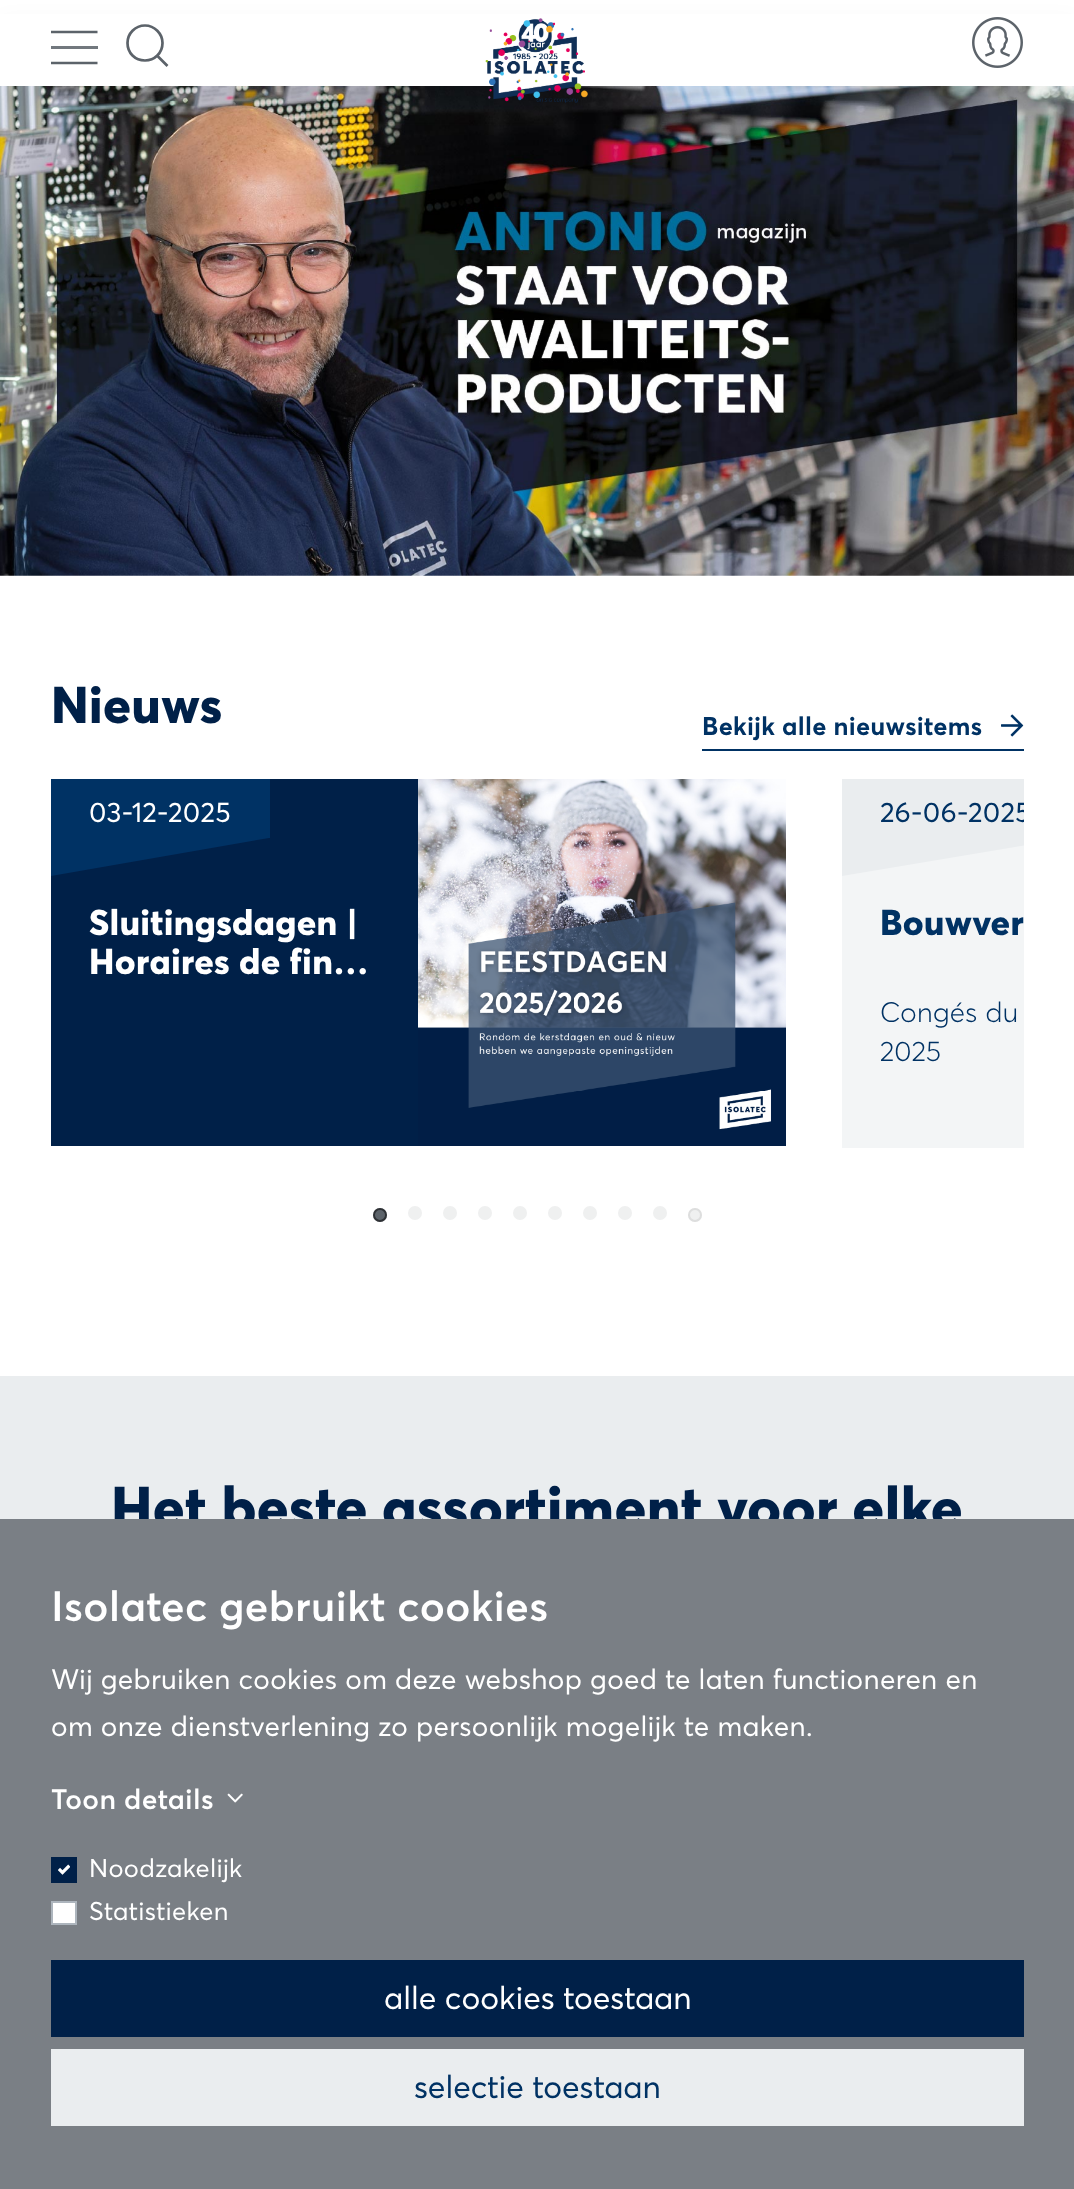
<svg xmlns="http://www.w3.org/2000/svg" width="1074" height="2189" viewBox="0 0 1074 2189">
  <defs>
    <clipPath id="clip1"><rect x="842" y="779" width="182" height="369"/></clipPath>
  </defs>
  <rect width="100%" height="100%" fill="rgb(255,255,255)"/>
  <image x="0" y="86" width="1074" height="490" href="pic3.png"/>
  <rect x="0" y="21" width="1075" height="86" fill="rgba(0,0,0,0.04)" filter="blur(10.5px)"/>
  <rect x="0" y="14" width="1074" height="72" fill="rgb(255,255,255)"/>
  <path d="M51 32H97.5" fill="none" stroke="rgb(92,99,106)" stroke-width="2.6"/>
  <rect x="51" y="46" width="47" height="3" fill="rgb(114,120,126)"/>
  <path d="M51 63H97.5" fill="none" stroke="rgb(92,99,106)" stroke-width="2.6"/>
  <path d="M145 60.5C154.5 60.5 162.5 53 162.5 43C162.5 33.5 154.5 25.5 145 25.5C135 25.5 127.5 33.5 127.5 43C127.5 53 135 60.5 145 60.5ZM157 55.5L167.5 66" fill="none" stroke="rgb(92,99,106)" stroke-width="2.7" stroke-linejoin="round"/>
  <image x="485" y="18" width="103" height="85" href="pic1.png"/>
  <image x="972" y="17" width="51" height="51" href="pic2.png"/>
  <text x="51" y="723" font-family="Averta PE" font-size="51" font-weight="800" letter-spacing="0.35" fill="rgb(0,32,72)">Nieuws</text>
  <rect x="702" y="749" width="322" height="2" fill="rgb(0,50,100)"/>
  <text x="702" y="735" font-family="Averta PE" font-size="25.4" font-weight="bold" letter-spacing="0.35" fill="rgb(0,50,100)">Bekijk alle nieuwsitems</text>
  <image x="1001" y="714" width="23" height="23" href="pic4.png"/>
  <rect x="51" y="779" width="367" height="367" fill="rgb(0,32,72)"/>
  <rect x="51" y="779" width="219" height="59" fill="rgb(0,50,100)"/>
  <text x="89" y="822" font-family="Averta PE" font-size="27.9" letter-spacing="0.35" fill="rgb(255,255,255)">03-12-2025</text>
  <path d="M269 838L51 876V838Z" fill="rgb(0,50,100)"/>
  <g font-family="Averta PE" font-size="35.5" font-weight="800" letter-spacing="0.35" fill="rgb(255,255,255)">
    <text>
      <tspan x="89" y="935">Sluitingsdagen |</tspan>
      <tspan x="89" y="974">Horaires de fin…</tspan>
    </text>
  </g>
  <image x="418" y="779" width="368" height="367" href="pic5.png"/>
  <rect x="842" y="845" width="182" height="303" fill="rgb(243,245,246)"/>
  <rect x="842" y="779" width="182" height="59" fill="rgb(234,237,239)"/>
  <g clip-path="url(#clip1)">
    <text x="880" y="822" font-family="Averta PE" font-size="27.9" letter-spacing="0.35" fill="rgb(0,50,100)">26-06-2025</text>
    <path d="M1069 838L842 876V838Z" fill="rgb(234,237,239)"/>
  </g>
  <text x="880" y="935" font-family="Averta PE" font-size="35.5" font-weight="800" letter-spacing="0.35" fill="rgb(0,50,100)">Bouwver</text>
  <g font-family="Averta PE" font-size="27.9" font-weight="300" letter-spacing="0.35" fill="rgb(0,50,100)">
    <text>
      <tspan x="880" y="1022">Congés du</tspan>
      <tspan x="880" y="1061">2025</tspan>
    </text>
  </g>
  <circle cx="380" cy="1215" r="7" fill="rgb(92,99,106)"/>
  <circle cx="380" cy="1215" r="6" fill="none" stroke="rgba(0,0,0,0.5)" stroke-width="2"/>
  <circle cx="415" cy="1213" r="7" fill="rgb(239,240,240)"/>
  <circle cx="450" cy="1213" r="7" fill="rgb(239,240,240)"/>
  <circle cx="485" cy="1213" r="7" fill="rgb(239,240,240)"/>
  <circle cx="520" cy="1213" r="7" fill="rgb(239,240,240)"/>
  <circle cx="555" cy="1213" r="7" fill="rgb(239,240,240)"/>
  <circle cx="590" cy="1213" r="7" fill="rgb(239,240,240)"/>
  <circle cx="625" cy="1213" r="7" fill="rgb(239,240,240)"/>
  <circle cx="660" cy="1213" r="7" fill="rgb(239,240,240)"/>
  <circle cx="695" cy="1215" r="7" fill="rgb(239,240,240)"/>
  <circle cx="695" cy="1215" r="6" fill="none" stroke="rgba(204,204,204,0.5)" stroke-width="2"/>
  <rect x="0" y="1376" width="1074" height="143" fill="rgb(234,237,239)"/>
  <text x="111" y="1528" font-family="Averta PE" font-size="58" font-weight="800" letter-spacing="0.35" fill="rgb(0,32,72)">Het beste assortiment voor elke</text>
  <rect x="0" y="1519" width="1074" height="670" fill="rgb(122,127,133)"/>
  <text x="51" y="1621" font-family="Averta PE" font-size="41.9" font-weight="600" letter-spacing="0.35" fill="rgb(255,255,255)">Isolatec gebruikt cookies</text>
  <g font-family="Averta PE" font-size="27.9" letter-spacing="0.35" fill="rgb(255,255,255)">
    <text>
      <tspan x="51" y="1689">Wij gebruiken cookies om deze webshop goed te laten functioneren en</tspan>
      <tspan x="51" y="1736">om onze dienstverlening zo persoonlijk mogelijk te maken.</tspan>
    </text>
  </g>
  <text x="51" y="1809" font-family="Averta PE" font-size="27.9" font-weight="600" letter-spacing="0.35" fill="rgb(255,255,255)">Toon details</text>
  <image x="227" y="1793" width="16" height="10" href="pic6.png"/>
  <rect x="51" y="1857" width="26" height="26" fill="rgb(0,32,72)"/>
  <text x="89" y="1877" font-family="Averta PE" font-size="25.4" letter-spacing="0.35" fill="rgb(255,255,255)">Noodzakelijk</text>
  <image x="58" y="1864" width="12" height="11" href="pic7.png"/>
  <rect x="52" y="1902" width="24" height="22" fill="rgb(255,255,255)" stroke="rgb(173,181,189)" stroke-width="2"/>
  <text x="89" y="1920" font-family="Averta PE" font-size="25.4" letter-spacing="0.35" fill="rgb(255,255,255)">Statistieken</text>
  <rect x="51" y="1960" width="973" height="77" fill="rgb(0,32,72)"/>
  <text x="384" y="2009" font-family="Averta PE" font-size="31.75" fill="rgb(255,255,255)">alle cookies toestaan</text>
  <rect x="51" y="2049" width="973" height="77" fill="rgb(234,237,239)"/>
  <text x="414" y="2098" font-family="Averta PE" font-size="31.75" fill="rgb(0,50,100)">selectie toestaan</text>
</svg>
